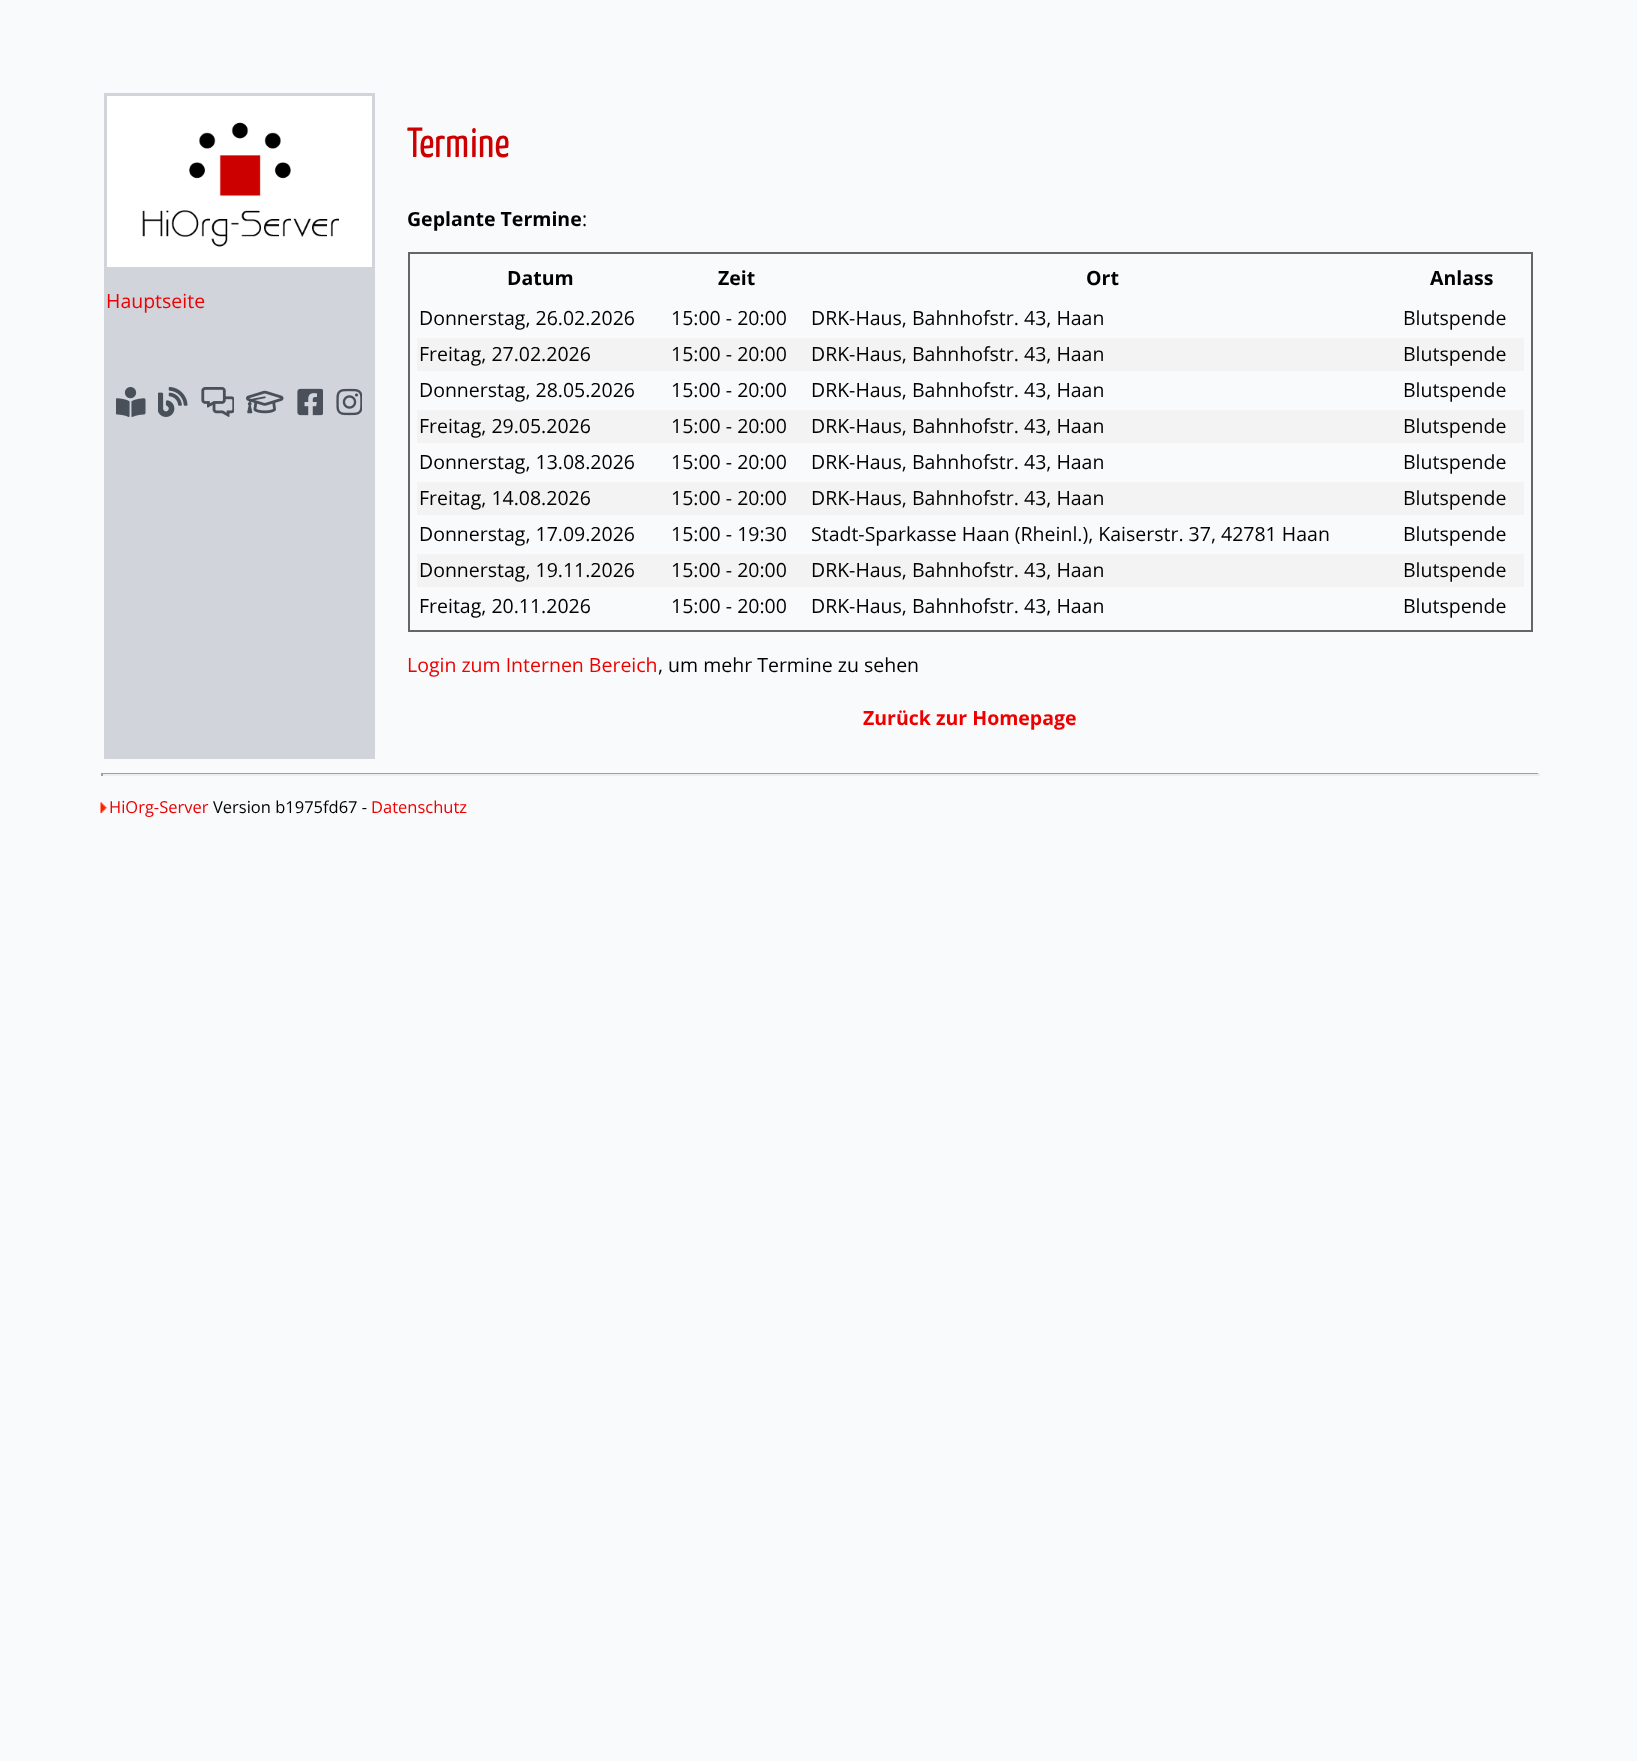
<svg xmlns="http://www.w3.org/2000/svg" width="1637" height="1761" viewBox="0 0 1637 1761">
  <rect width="100%" height="100%" fill="rgb(249,250,251)"/>
  <rect x="104" y="93" width="271" height="666" fill="rgb(209,213,219)"/>
  <rect x="107" y="96" width="265" height="171" fill="rgb(255,255,255)"/>
  <image x="142" y="122" width="197" height="125" href="pic1.png"/>
  <text x="106" y="308" font-family="Open Sans" font-size="19.5" fill="rgb(238,0,0)">Hauptseite</text>
  <image x="116" y="387" width="30" height="30" href="pic2.png"/>
  <image x="158" y="387" width="30" height="30" href="pic3.png"/>
  <image x="201" y="387" width="33" height="30" href="pic4.png"/>
  <image x="246" y="390" width="38" height="24" href="pic5.png"/>
  <image x="297" y="388" width="26" height="28" href="pic6.png"/>
  <image x="336" y="388" width="26" height="28" href="pic7.png"/>
  <text x="407" y="157" font-family="Yanone Kaffeesatz" font-size="42" font-weight="200" fill="rgb(205,0,0)">Termine</text>
  <text x="407" y="226" font-family="Open Sans" font-size="19.5" font-weight="bold" fill="rgb(0,0,0)">Geplante Termine</text>
  <text x="582" y="226" font-family="Open Sans" font-size="19.5" fill="rgb(0,0,0)">:</text>
  <rect x="409" y="253" width="1123" height="378" fill="none" stroke="rgb(102,102,102)" stroke-width="2"/>
  <g font-family="Open Sans" font-size="19.5" font-weight="bold" fill="rgb(0,0,0)">
    <text x="507" y="285">Datum</text>
    <text x="718" y="285">Zeit</text>
    <text x="1086" y="285">Ort</text>
    <text x="1430" y="285">Anlass</text>
  </g>
  <g font-family="Open Sans" font-size="19.5" fill="rgb(0,0,0)">
    <text x="419" y="325">Donnerstag, 26.02.2026</text>
    <text x="671" y="325">15:00 - 20:00</text>
    <text x="811" y="325">DRK-Haus, Bahnhofstr. 43, Haan</text>
    <text x="1403" y="325">Blutspende</text>
  </g>
  <rect x="417" y="338" width="1107" height="33" fill="rgb(243,243,243)"/>
  <g font-family="Open Sans" font-size="19.5" fill="rgb(0,0,0)">
    <text x="419" y="361">Freitag, 27.02.2026</text>
    <text x="671" y="361">15:00 - 20:00</text>
    <text x="811" y="361">DRK-Haus, Bahnhofstr. 43, Haan</text>
    <text x="1403" y="361">Blutspende</text>
    <text x="419" y="397">Donnerstag, 28.05.2026</text>
    <text x="671" y="397">15:00 - 20:00</text>
    <text x="811" y="397">DRK-Haus, Bahnhofstr. 43, Haan</text>
    <text x="1403" y="397">Blutspende</text>
  </g>
  <rect x="417" y="410" width="1107" height="33" fill="rgb(243,243,243)"/>
  <g font-family="Open Sans" font-size="19.5" fill="rgb(0,0,0)">
    <text x="419" y="433">Freitag, 29.05.2026</text>
    <text x="671" y="433">15:00 - 20:00</text>
    <text x="811" y="433">DRK-Haus, Bahnhofstr. 43, Haan</text>
    <text x="1403" y="433">Blutspende</text>
    <text x="419" y="469">Donnerstag, 13.08.2026</text>
    <text x="671" y="469">15:00 - 20:00</text>
    <text x="811" y="469">DRK-Haus, Bahnhofstr. 43, Haan</text>
    <text x="1403" y="469">Blutspende</text>
  </g>
  <rect x="417" y="482" width="1107" height="33" fill="rgb(243,243,243)"/>
  <g font-family="Open Sans" font-size="19.5" fill="rgb(0,0,0)">
    <text x="419" y="505">Freitag, 14.08.2026</text>
    <text x="671" y="505">15:00 - 20:00</text>
    <text x="811" y="505">DRK-Haus, Bahnhofstr. 43, Haan</text>
    <text x="1403" y="505">Blutspende</text>
    <text x="419" y="541">Donnerstag, 17.09.2026</text>
    <text x="671" y="541">15:00 - 19:30</text>
    <text x="811" y="541">Stadt-Sparkasse Haan (Rheinl.), Kaiserstr. 37, 42781 Haan</text>
    <text x="1403" y="541">Blutspende</text>
  </g>
  <rect x="417" y="554" width="1107" height="33" fill="rgb(243,243,243)"/>
  <g font-family="Open Sans" font-size="19.5" fill="rgb(0,0,0)">
    <text x="419" y="577">Donnerstag, 19.11.2026</text>
    <text x="671" y="577">15:00 - 20:00</text>
    <text x="811" y="577">DRK-Haus, Bahnhofstr. 43, Haan</text>
    <text x="1403" y="577">Blutspende</text>
    <text x="419" y="613">Freitag, 20.11.2026</text>
    <text x="671" y="613">15:00 - 20:00</text>
    <text x="811" y="613">DRK-Haus, Bahnhofstr. 43, Haan</text>
    <text x="1403" y="613">Blutspende</text>
  </g>
  <text x="407" y="672" font-family="Open Sans" font-size="19.5" fill="rgb(238,0,0)">Login zum Internen Bereich</text>
  <text x="658" y="672" font-family="Open Sans" font-size="19.5" fill="rgb(0,0,0)">, um mehr Termine zu sehen</text>
  <text x="863" y="725" font-family="Open Sans" font-size="19.5" font-weight="bold" fill="rgb(238,0,0)">Zurück zur Homepage</text>
  <rect x="101" y="773" width="1438" height="1" fill="rgb(159,159,159)"/>
  <rect x="1538" y="773" width="2" height="3" fill="rgb(238,238,238)"/>
  <rect x="101" y="774" width="1438" height="2" fill="rgb(238,238,238)"/>
  <rect x="101" y="773" width="2" height="3" fill="rgb(159,159,159)"/>
  <image x="100" y="802" width="7" height="11" href="pic8.png"/>
  <text x="109" y="813" font-family="Open Sans" font-size="16.5" fill="rgb(238,0,0)">HiOrg-Server</text>
  <text x="213" y="813" font-family="Open Sans" font-size="16.5" fill="rgb(0,0,0)">Version b1975fd67 -</text>
  <text x="371" y="813" font-family="Open Sans" font-size="16.5" fill="rgb(238,0,0)">Datenschutz</text>
</svg>
